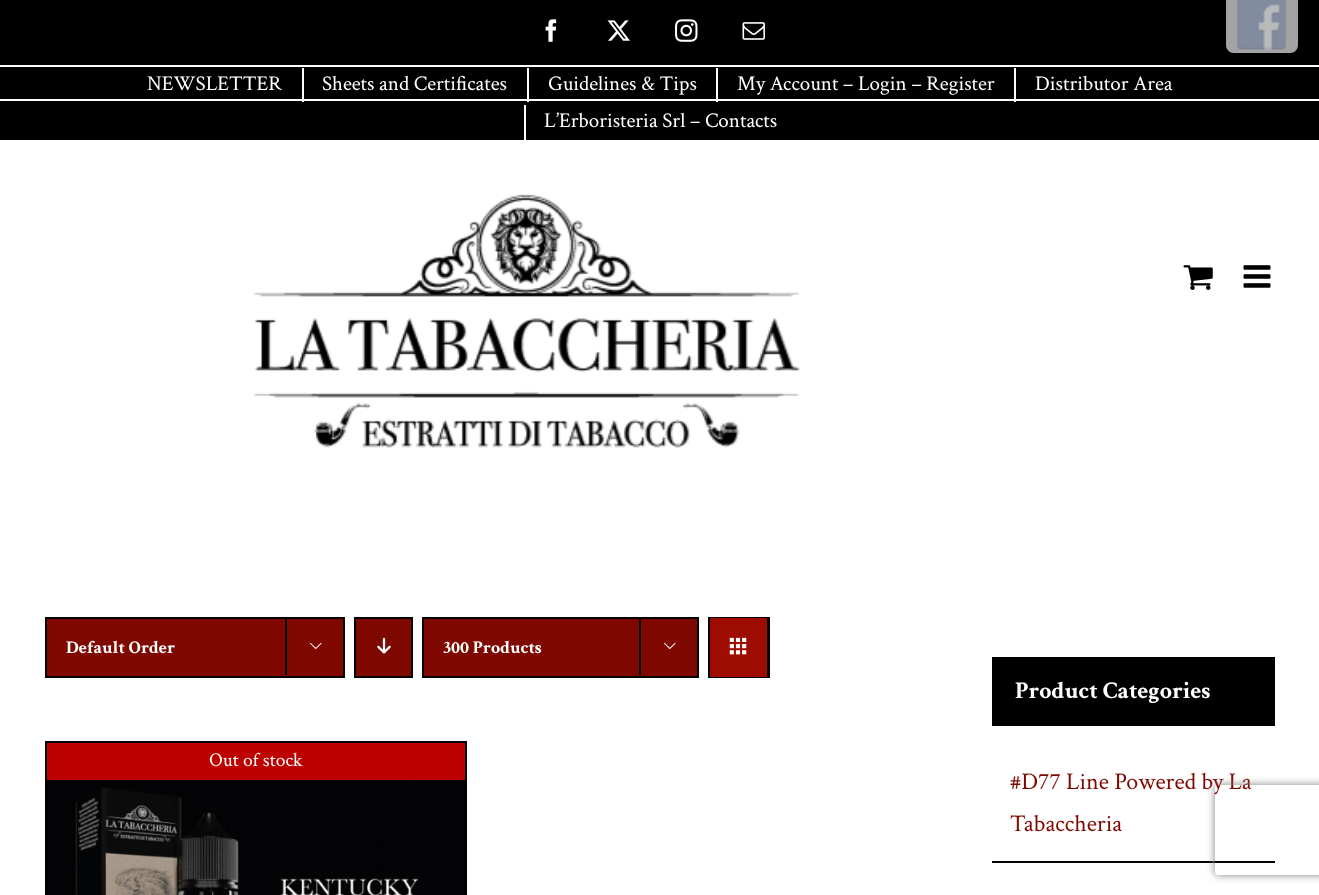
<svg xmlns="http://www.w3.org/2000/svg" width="1319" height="895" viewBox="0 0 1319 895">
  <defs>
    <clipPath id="clip1"><path d="M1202 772H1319V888H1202ZM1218 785H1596C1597.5 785 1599 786.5 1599 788V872C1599 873.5 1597.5 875 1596 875H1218C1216.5 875 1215 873.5 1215 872V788C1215 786.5 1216.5 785 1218 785Z" clip-rule="evenodd"/></clipPath>
  </defs>
  <rect width="100%" height="100%" fill="rgb(255,255,255)"/>
  <rect x="0" y="0" width="1319" height="140" fill="rgb(0,0,0)"/>
  <path d="M1226 0H1298V45C1298 49.5 1294.5 53 1290 53H1234C1229.5 53 1226 49.5 1226 45Z" fill="rgb(163,163,163)"/>
  <image x="1236" y="0" width="51" height="51" href="pic1.png"/>
  <rect x="0" y="65" width="1319" height="2" fill="rgb(255,255,255)"/>
  <image x="545" y="19" width="12" height="23" href="pic2.png"/>
  <image x="607" y="20" width="23" height="21" href="pic3.png"/>
  <image x="675" y="19" width="23" height="23" href="pic4.png"/>
  <image x="742" y="22" width="23" height="18" href="pic5.png"/>
  <text x="147" y="90" font-family="Crimson Text" font-size="21" fill="rgb(255,255,255)">NEWSLETTER</text>
  <rect x="302" y="68" width="2" height="34" fill="rgb(255,255,255)"/>
  <text x="322" y="90" font-family="Crimson Text" font-size="21" fill="rgb(255,255,255)">Sheets and Certificates</text>
  <rect x="527" y="68" width="2" height="34" fill="rgb(255,255,255)"/>
  <text x="548" y="90" font-family="Crimson Text" font-size="21" fill="rgb(255,255,255)">Guidelines &amp; Tips</text>
  <rect x="716" y="68" width="2" height="34" fill="rgb(255,255,255)"/>
  <text x="737" y="90" font-family="Crimson Text" font-size="21" fill="rgb(255,255,255)">My Account – Login – Register</text>
  <rect x="1014" y="68" width="2" height="34" fill="rgb(255,255,255)"/>
  <text x="1035" y="90" font-family="Crimson Text" font-size="21" fill="rgb(255,255,255)">Distributor Area</text>
  <rect x="0" y="99" width="1319" height="2" fill="rgb(255,255,255)"/>
  <rect x="524" y="105" width="2" height="35" fill="rgb(255,255,255)"/>
  <text x="544" y="127" font-family="Crimson Text" font-size="21" fill="rgb(255,255,255)">L’Erboristeria Srl – Contacts</text>
  <image x="253" y="194" width="548" height="254" href="pic6.png"/>
  <image x="1183" y="265" width="30" height="25" href="pic7.png"/>
  <image x="1243" y="265" width="28" height="23" href="pic8.png"/>
  <rect x="46" y="618" width="298" height="59" fill="rgb(127,8,0)" stroke="rgb(0,0,0)" stroke-width="2"/>
  <text x="66" y="653" font-family="Crimson Text" font-size="18" font-weight="bold" fill="rgb(255,255,255)">Default Order</text>
  <rect x="285" y="617" width="2" height="58" fill="rgb(0,0,0)"/>
  <image x="310" y="642" width="12" height="7" href="pic9.png"/>
  <rect x="355" y="618" width="57" height="59" fill="rgb(127,8,0)" stroke="rgb(0,0,0)" stroke-width="2"/>
  <image x="377" y="637" width="14" height="17" href="pic10.png"/>
  <rect x="423" y="618" width="275" height="59" fill="rgb(127,8,0)" stroke="rgb(0,0,0)" stroke-width="2"/>
  <text x="443" y="653" font-family="Crimson Text" font-size="18" font-weight="bold" fill="rgb(255,255,255)">300 Products</text>
  <rect x="639" y="617" width="2" height="58" fill="rgb(0,0,0)"/>
  <image x="664" y="642" width="12" height="7" href="pic9.png"/>
  <rect x="709" y="618" width="60" height="59" fill="none" stroke="rgb(0,0,0)" stroke-width="2"/>
  <rect x="710" y="618" width="57" height="59" fill="rgb(158,11,0)"/>
  <rect x="767" y="618" width="1" height="59" fill="rgb(0,0,0)"/>
  <image x="729" y="637" width="18" height="18" href="pic11.png"/>
  <rect x="45" y="741" width="422" height="2" fill="rgb(0,0,0)"/>
  <rect x="465" y="741" width="2" height="154" fill="rgb(0,0,0)"/>
  <rect x="45" y="741" width="2" height="154" fill="rgb(0,0,0)"/>
  <image x="47" y="743" width="418" height="152" href="pic12.png"/>
  <rect x="47" y="743" width="418" height="37" fill="rgba(210,0,0,0.9)"/>
  <text x="209" y="766" font-family="Crimson Text" font-size="19.5" fill="rgb(255,255,255)">Out of stock</text>
  <rect x="992" y="657" width="283" height="69" fill="rgb(0,0,0)"/>
  <text x="1015" y="698" font-family="Crimson Text" font-size="24" font-weight="bold" fill="rgb(255,255,255)">Product Categories</text>
  <rect x="992" y="861" width="283" height="2" fill="rgb(0,0,0)"/>
  <g font-family="Crimson Text" font-size="24" fill="rgb(127,8,0)">
    <text>
      <tspan x="1010" y="789">#D77 Line Powered by La</tspan>
      <tspan x="1010" y="831">Tabaccheria</tspan>
    </text>
  </g>
  <g clip-path="url(#clip1)">
    <rect x="1215" y="785" width="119" height="90" rx="3" fill="rgb(128,128,128)" filter="blur(4px)"/>
  </g>
</svg>
